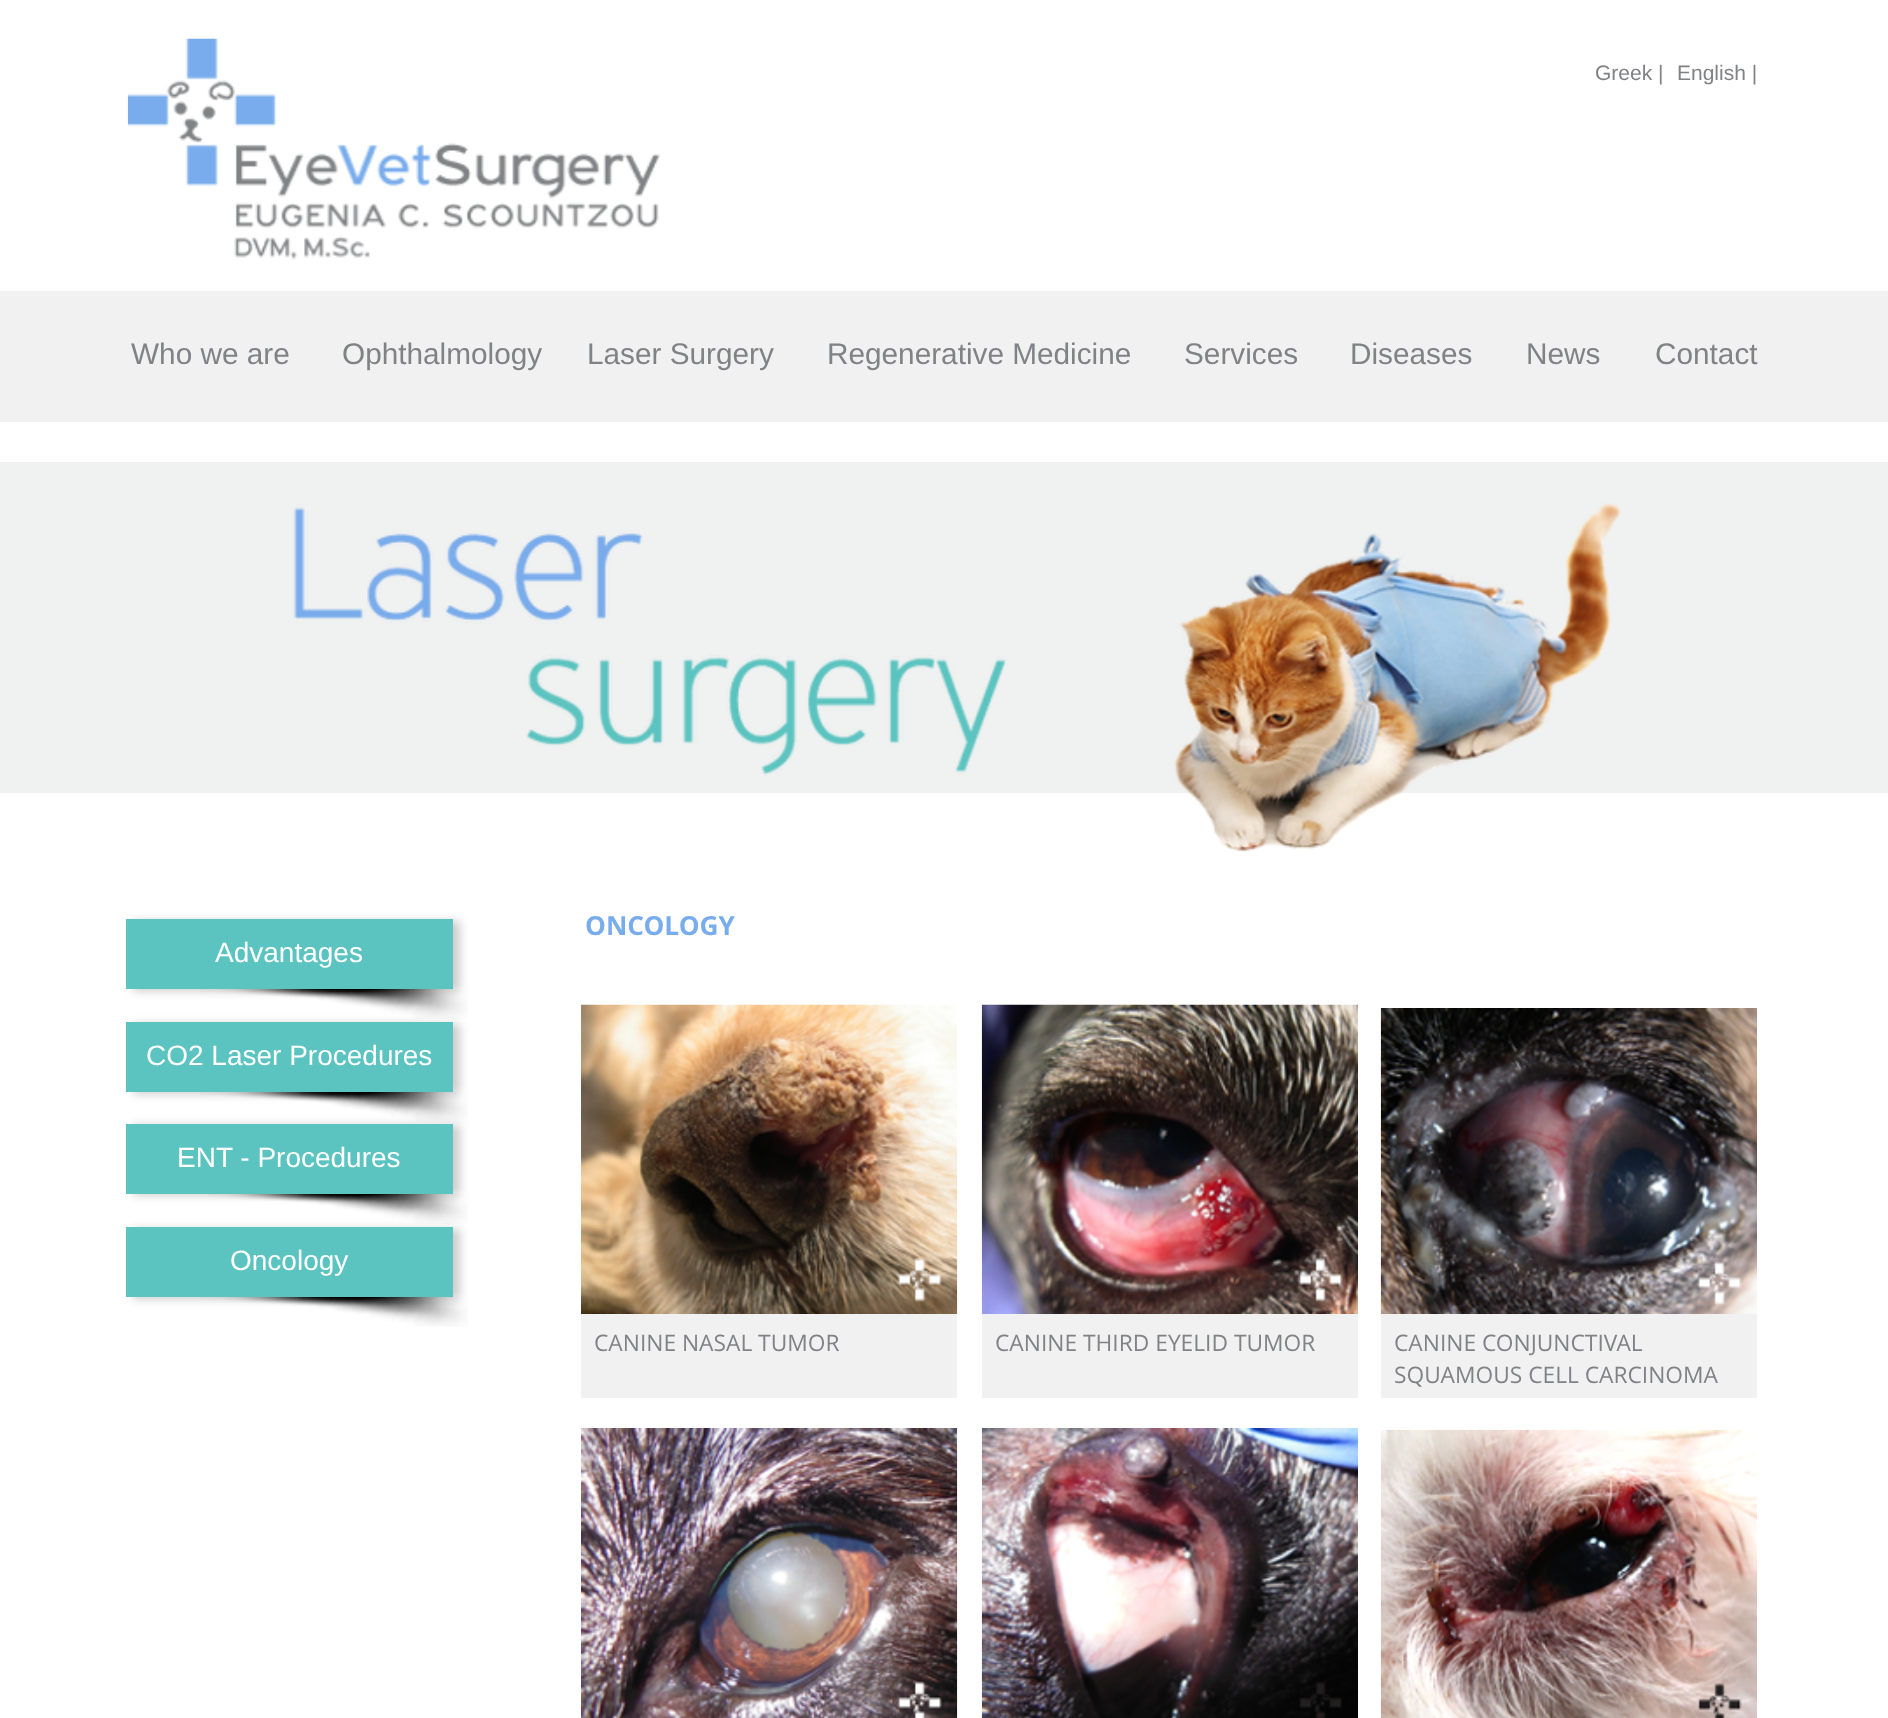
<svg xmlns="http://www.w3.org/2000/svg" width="1888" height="1718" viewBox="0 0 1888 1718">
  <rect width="100%" height="100%" fill="rgb(255,255,255)"/>
  <image x="127" y="38" width="534" height="222" href="pic1.png"/>
  <g font-family="Liberation Sans" font-size="21" fill="rgb(128,130,133)">
    <text x="1595" y="80">Greek |</text>
    <text x="1677" y="80">English |</text>
  </g>
  <rect x="0" y="291" width="1888" height="131" fill="rgb(241,241,241)"/>
  <g font-family="Liberation Sans" font-size="29.75" fill="rgb(128,130,133)">
    <text x="131" y="364">Who we are</text>
    <text x="342" y="364">Ophthalmology</text>
    <text x="587" y="364">Laser Surgery</text>
    <text x="827" y="364">Regenerative Medicine</text>
    <text x="1184" y="364">Services</text>
    <text x="1350" y="364">Diseases</text>
    <text x="1526" y="364">News</text>
    <text x="1655" y="364">Contact</text>
  </g>
  <rect x="0" y="462" width="1888" height="331" fill="rgb(240,241,241)"/>
  <image x="293" y="503" width="1328" height="349" href="pic2.png"/>
  <text x="585" y="935" font-family="Open Sans" font-size="26.25" font-weight="bold" fill="rgb(121,172,237)">ONCOLOGY</text>
  <image x="200" y="989" width="268" height="30" href="pic3.png"/>
  <rect x="133" y="921" width="327" height="70" fill="rgba(0,0,0,0.2)" filter="blur(5px)"/>
  <rect x="126" y="919" width="327" height="70" fill="rgb(91,196,192)"/>
  <text x="215" y="962" font-family="Liberation Sans" font-size="28" fill="rgb(255,255,255)">Advantages</text>
  <image x="200" y="1092" width="268" height="31" href="pic4.png"/>
  <rect x="133" y="1024" width="327" height="70" fill="rgba(0,0,0,0.2)" filter="blur(5px)"/>
  <rect x="126" y="1022" width="327" height="70" fill="rgb(91,196,192)"/>
  <text x="146" y="1065" font-family="Liberation Sans" font-size="28" fill="rgb(255,255,255)">CO2 Laser Procedures</text>
  <image x="981" y="1004" width="377" height="310" href="pic5.png"/>
  <image x="1380" y="1008" width="377" height="310" href="pic6.png"/>
  <image x="208" y="1194" width="260" height="30" href="pic7.png"/>
  <rect x="133" y="1125" width="327" height="70" fill="rgba(0,0,0,0.2)" filter="blur(5px)"/>
  <rect x="126" y="1124" width="327" height="70" fill="rgb(91,196,192)"/>
  <text x="177" y="1167" font-family="Liberation Sans" font-size="28" fill="rgb(255,255,255)">ENT - Procedures</text>
  <image x="200" y="1297" width="268" height="30" href="pic3.png"/>
  <rect x="133" y="1229" width="327" height="70" fill="rgba(0,0,0,0.2)" filter="blur(5px)"/>
  <rect x="126" y="1227" width="327" height="70" fill="rgb(91,196,192)"/>
  <text x="230" y="1270" font-family="Liberation Sans" font-size="28" fill="rgb(255,255,255)">Oncology</text>
  <image x="581" y="1004" width="377" height="310" href="pic8.png"/>
  <rect x="581" y="1314" width="376" height="84" fill="rgb(241,241,241)"/>
  <text x="594" y="1351" font-family="Open Sans" font-size="22.75" fill="rgb(128,130,133)">CANINE NASAL TUMOR</text>
  <rect x="982" y="1314" width="376" height="84" fill="rgb(241,241,241)"/>
  <text x="995" y="1351" font-family="Open Sans" font-size="22.75" fill="rgb(128,130,133)">CANINE THIRD EYELID TUMOR</text>
  <rect x="1381" y="1314" width="376" height="84" fill="rgb(241,241,241)"/>
  <g font-family="Open Sans" font-size="22.75" fill="rgb(128,130,133)">
    <text>
      <tspan x="1394" y="1351">CANINE CONJUNCTIVAL</tspan>
      <tspan x="1394" y="1383">SQUAMOUS CELL CARCINOMA</tspan>
    </text>
  </g>
  <image x="581" y="1428" width="377" height="290" href="pic9.png"/>
  <image x="981" y="1428" width="377" height="290" href="pic10.png"/>
  <image x="1380" y="1429" width="377" height="289" href="pic11.png"/>
</svg>
